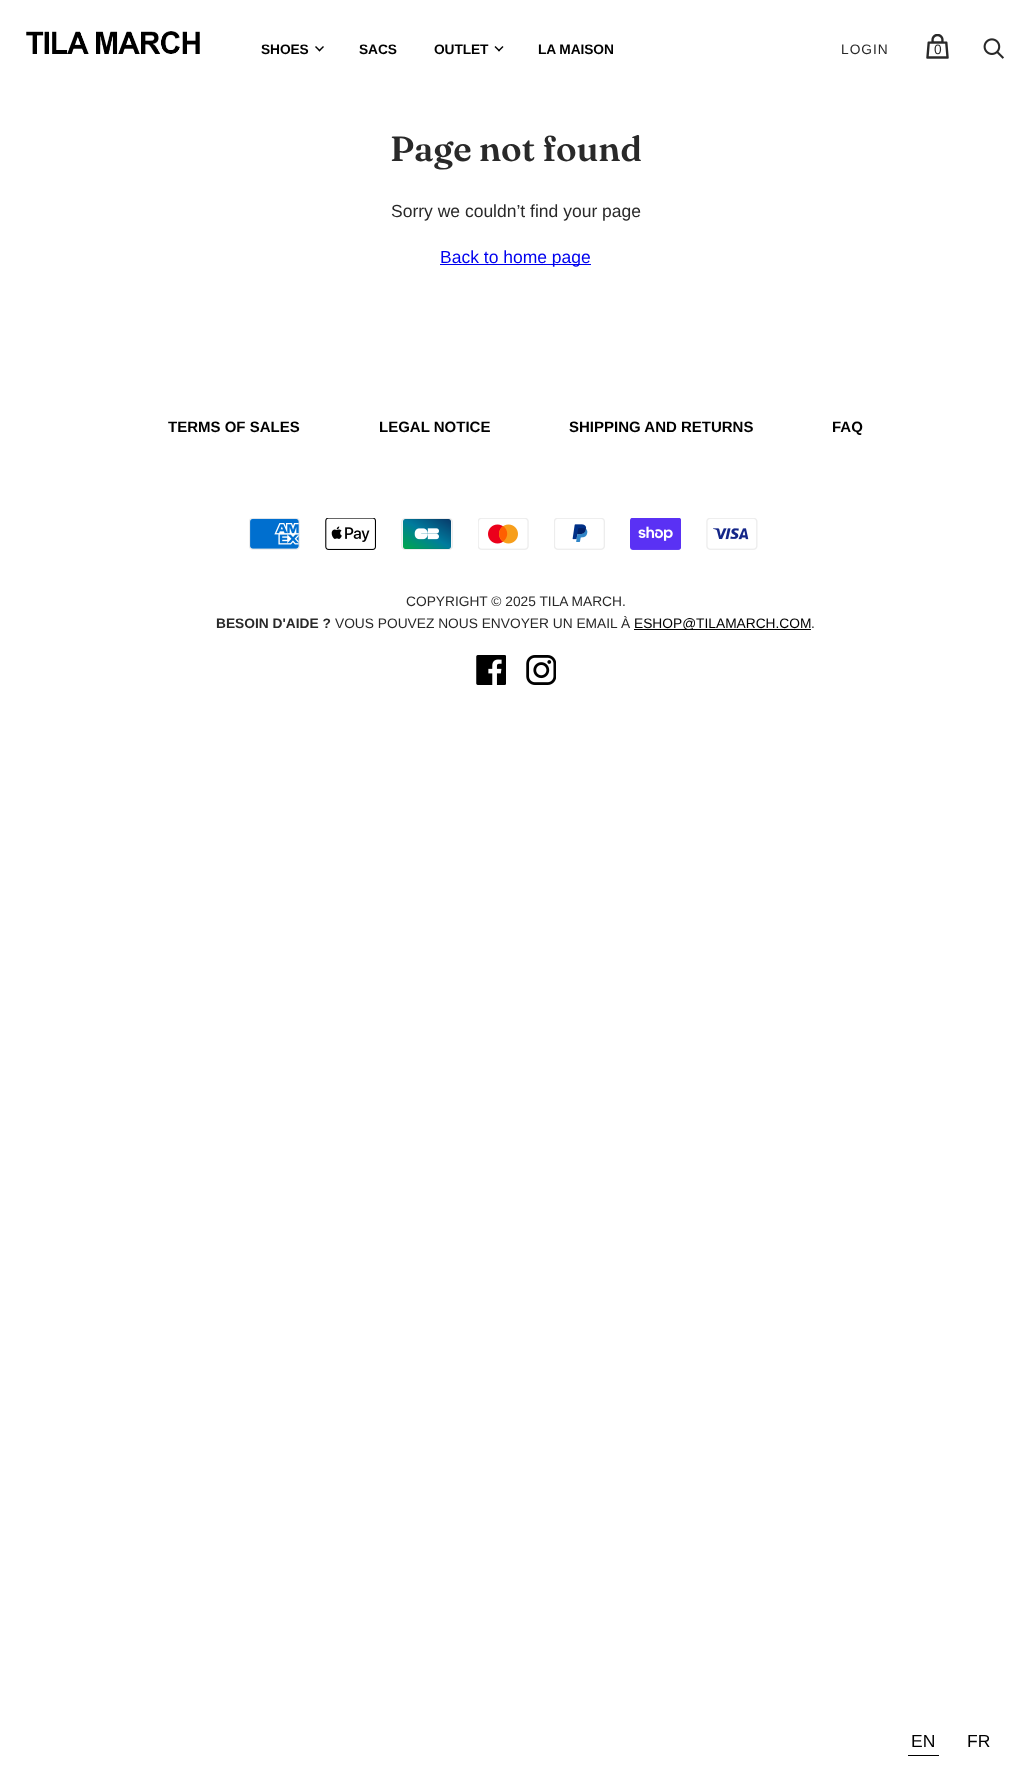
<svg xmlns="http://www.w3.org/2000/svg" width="1031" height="1781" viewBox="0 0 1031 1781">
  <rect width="100%" height="100%" fill="rgb(255,255,255)"/>
  <image x="26" y="31" width="174" height="23" href="pic1.png"/>
  <text x="261" y="54" font-family="Liberation Sans" font-size="13.75" font-weight="bold" letter-spacing="-0.1" fill="rgb(0,0,0)">SHOES</text>
  <path d="M318.5 50.5L323 46L324 47L319.5 51.5Z" fill="rgb(0,0,0)"/>
  <path d="M315 47L316 46L320.5 50.5L319.5 51.5Z" fill="rgb(0,0,0)"/>
  <g font-family="Liberation Sans" font-size="13.75" font-weight="bold" letter-spacing="-0.1" fill="rgb(0,0,0)">
    <text x="359" y="54">SACS</text>
    <text x="434" y="54">OUTLET</text>
  </g>
  <path d="M498 50.5L502.5 46L503.5 47L499 51.5Z" fill="rgb(0,0,0)"/>
  <path d="M494.5 47L495.5 46L500 50.5L499 51.5Z" fill="rgb(0,0,0)"/>
  <text x="538" y="54" font-family="Liberation Sans" font-size="13.75" font-weight="bold" letter-spacing="-0.1" fill="rgb(0,0,0)">LA MAISON</text>
  <text x="841" y="54" font-family="Liberation Sans" font-size="13.75" letter-spacing="1" fill="rgb(41,41,41)">LOGIN</text>
  <image x="926" y="34" width="23" height="25" href="pic2.png"/>
  <text x="934" y="54" font-family="Liberation Sans" font-size="13.75" fill="rgb(41,41,41)">0</text>
  <image x="983" y="38" width="21" height="21" href="pic3.png"/>
  <text x="390" y="161" font-family="Fraunces" font-size="35" font-weight="600" fill="rgb(41,41,41)">Page not found</text>
  <text x="391" y="217" font-family="Liberation Sans" font-size="17.5" fill="rgb(41,41,41)">Sorry we couldn’t find your page</text>
  <rect x="440" y="264" width="151" height="1" fill="rgb(0,0,238)"/>
  <text x="440" y="263" font-family="Liberation Sans" font-size="17.5" fill="rgb(0,0,238)">Back to home page</text>
  <g font-family="Liberation Sans" font-size="15" font-weight="bold" fill="rgb(0,0,0)">
    <text x="168" y="432">TERMS OF SALES</text>
    <text x="379" y="432">LEGAL NOTICE</text>
    <text x="569" y="432">SHIPPING AND RETURNS</text>
    <text x="832" y="432">FAQ</text>
  </g>
  <image x="249" y="518" width="51" height="32" href="pic4.png"/>
  <image x="325" y="518" width="51" height="32" href="pic5.png"/>
  <image x="401" y="518" width="52" height="32" href="pic6.png"/>
  <image x="478" y="518" width="51" height="32" href="pic7.png"/>
  <image x="554" y="518" width="51" height="32" href="pic8.png"/>
  <image x="630" y="518" width="51" height="32" href="pic9.png"/>
  <image x="706" y="518" width="52" height="32" href="pic10.png"/>
  <text x="406" y="606" font-family="Liberation Sans" font-size="13.75" fill="rgb(41,41,41)">COPYRIGHT © 2025 TILA MARCH.</text>
  <text x="216" y="628" font-family="Liberation Sans" font-size="13.75" font-weight="bold" fill="rgb(41,41,41)">BESOIN D'AIDE ?</text>
  <text x="335" y="628" font-family="Liberation Sans" font-size="13.75" fill="rgb(41,41,41)">VOUS POUVEZ NOUS ENVOYER UN EMAIL À</text>
  <rect x="634" y="629" width="177" height="1" fill="rgb(0,0,0)"/>
  <text x="634" y="628" font-family="Liberation Sans" font-size="13.75" fill="rgb(0,0,0)">ESHOP@TILAMARCH.COM</text>
  <text x="811" y="628" font-family="Liberation Sans" font-size="13.75" fill="rgb(41,41,41)">.</text>
  <image x="476" y="655" width="30" height="30" href="pic11.png"/>
  <image x="526" y="655" width="30" height="30" href="pic12.png"/>
  <rect x="908" y="1755" width="31" height="1" fill="rgb(0,0,0)"/>
  <g font-family="Liberation Sans" font-size="17.5" fill="rgb(0,0,0)">
    <text x="911" y="1747">EN</text>
    <text x="967" y="1747">FR</text>
  </g>
</svg>
